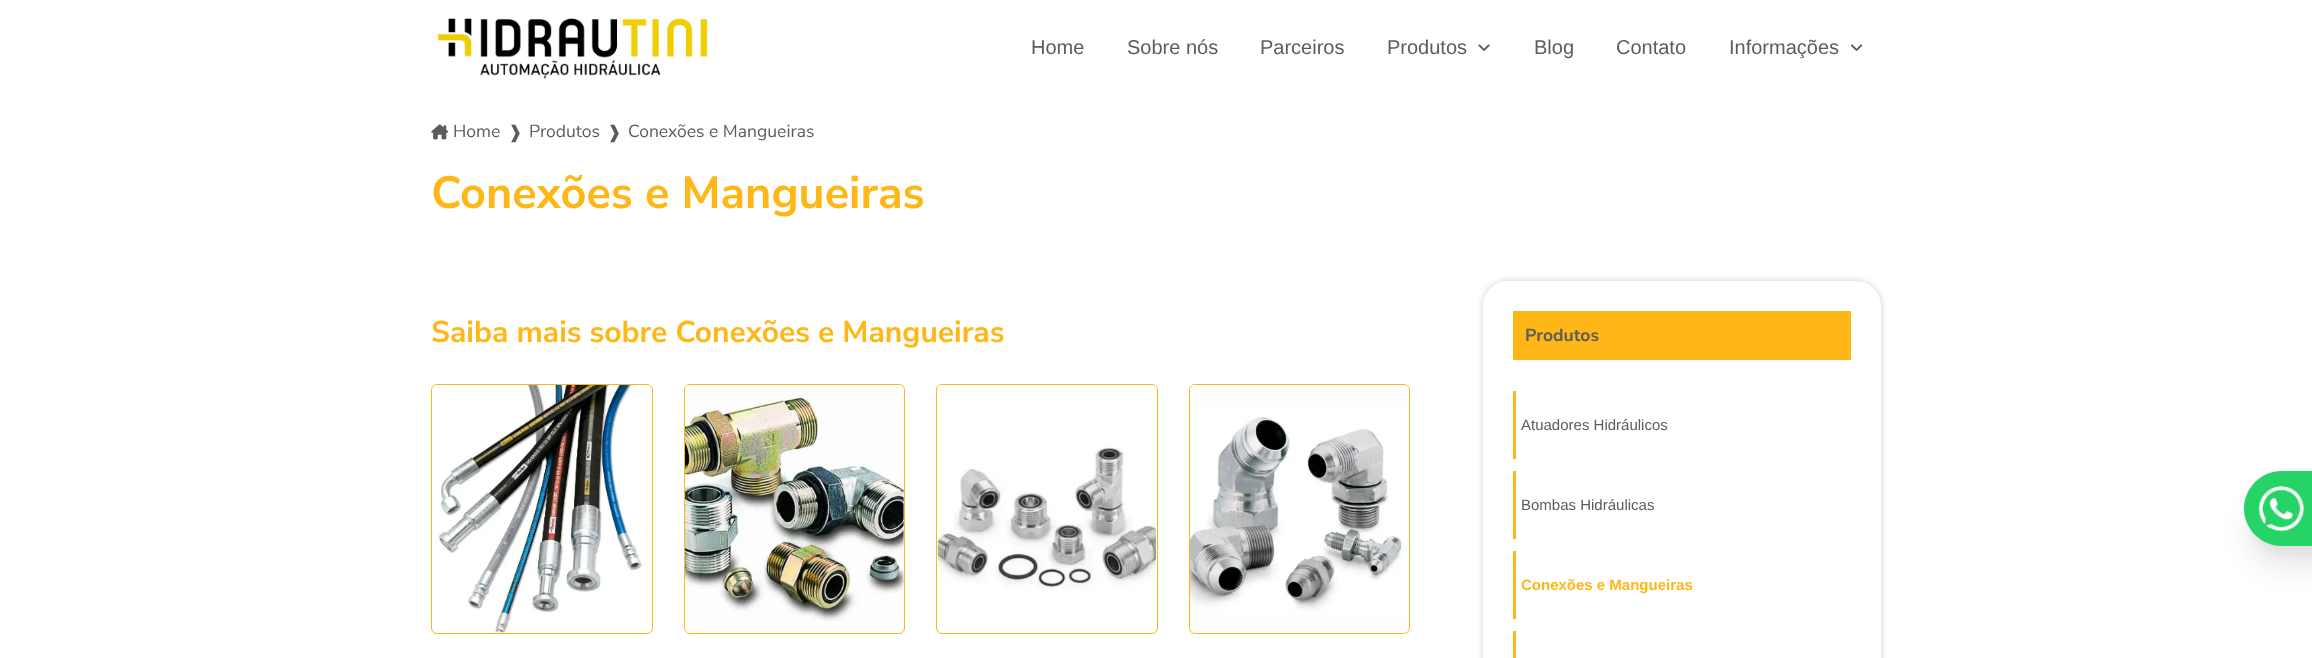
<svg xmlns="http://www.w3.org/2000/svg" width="2312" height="658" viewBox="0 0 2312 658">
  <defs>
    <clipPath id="clip1"><path d="M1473 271H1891V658H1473ZM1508 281H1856C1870 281 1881 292 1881 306V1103C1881 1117 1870 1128 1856 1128H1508C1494 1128 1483 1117 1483 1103V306C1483 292 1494 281 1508 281Z" clip-rule="evenodd"/></clipPath>
  </defs>
  <rect width="100%" height="100%" fill="rgb(255,255,255)"/>
  <image x="437" y="18" width="271" height="61" href="pic1.png"/>
  <g font-family="Liberation Sans" font-size="20" fill="rgb(92,92,92)">
    <text x="1031" y="54">Home</text>
    <text x="1127" y="54">Sobre nós</text>
    <text x="1260" y="54">Parceiros</text>
    <text x="1387" y="54">Produtos</text>
  </g>
  <image x="1478" y="44" width="12" height="7" href="pic2.png"/>
  <g font-family="Liberation Sans" font-size="20" fill="rgb(92,92,92)">
    <text x="1534" y="54">Blog</text>
    <text x="1616" y="54">Contato</text>
    <text x="1729" y="54">Informações</text>
  </g>
  <image x="1851" y="44" width="12" height="7" href="pic3.png"/>
  <image x="431" y="124" width="18" height="16" href="pic4.png"/>
  <text x="453" y="137" font-family="Nunito Sans" font-size="17.5" fill="rgb(92,92,92)">Home</text>
  <text x="508" y="138" font-family="DejaVu Sans" font-size="17.5" fill="rgb(92,92,92)">❱</text>
  <text x="529" y="137" font-family="Nunito Sans" font-size="17.5" fill="rgb(92,92,92)">Produtos</text>
  <text x="607" y="138" font-family="DejaVu Sans" font-size="17.5" fill="rgb(92,92,92)">❱</text>
  <text x="628" y="137" font-family="Nunito Sans" font-size="17.5" fill="rgb(92,92,92)">Conexões e Mangueiras</text>
  <text x="431" y="208" font-family="Nunito Sans" font-size="45" font-weight="bold" fill="rgb(255,183,23)">Conexões e Mangueiras</text>
  <text x="431" y="342" font-family="Nunito Sans" font-size="30" font-weight="bold" fill="rgb(255,183,23)">Saiba mais sobre Conexões e Mangueiras</text>
  <rect x="431.5" y="384.5" width="221" height="249" rx="5.5" fill="none" stroke="rgb(255,183,23)"/>
  <image x="432" y="385" width="219" height="248" href="pic5.png"/>
  <rect x="684.5" y="384.5" width="220" height="249" rx="5.5" fill="none" stroke="rgb(255,183,23)"/>
  <image x="685" y="385" width="219" height="247" href="pic6.png"/>
  <rect x="936.5" y="384.5" width="221" height="249" rx="5.5" fill="none" stroke="rgb(255,183,23)"/>
  <image x="937" y="385" width="220" height="206" href="pic7.png"/>
  <rect x="1189.5" y="384.5" width="220" height="249" rx="5.5" fill="none" stroke="rgb(255,183,23)"/>
  <image x="1190" y="385" width="219" height="247" href="pic8.png"/>
  <g clip-path="url(#clip1)">
    <rect x="1483" y="281" width="398" height="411" rx="25" fill="rgba(0,0,0,0.2)" filter="blur(3px)"/>
  </g>
  <rect x="1513" y="311" width="338" height="49" fill="rgb(255,183,23)"/>
  <text x="1525" y="341" font-family="Nunito Sans" font-size="17.5" font-weight="bold" fill="rgb(92,92,92)">Produtos</text>
  <rect x="1513" y="391" width="3" height="68" fill="rgb(255,183,23)"/>
  <text x="1521" y="430" font-family="Liberation Sans" font-size="15" fill="rgb(92,92,92)">Atuadores Hidráulicos</text>
  <rect x="1513" y="471" width="3" height="68" fill="rgb(255,183,23)"/>
  <text x="1521" y="510" font-family="Liberation Sans" font-size="15" fill="rgb(92,92,92)">Bombas Hidráulicas</text>
  <rect x="1513" y="551" width="3" height="68" fill="rgb(255,183,23)"/>
  <text x="1521" y="590" font-family="Liberation Sans" font-size="15" font-weight="bold" fill="rgb(255,183,23)">Conexões e Mangueiras</text>
  <rect x="1513" y="631" width="3" height="27" fill="rgb(255,183,23)"/>
  <rect x="2250" y="490" width="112" height="63" rx="31.5" fill="rgba(0,0,0,0.04)" filter="blur(6px)"/>
  <rect x="2250" y="503" width="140" height="62" rx="31" fill="rgba(0,0,0,0.1)" filter="blur(15.5px)"/>
  <path d="M2281.5 471H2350V546H2281.5C2261 546 2244 529 2244 508.5C2244 488 2261 471 2281.5 471Z" fill="rgb(37,211,102)"/>
  <image x="2258" y="486" width="46" height="46" href="pic9.png"/>
</svg>
